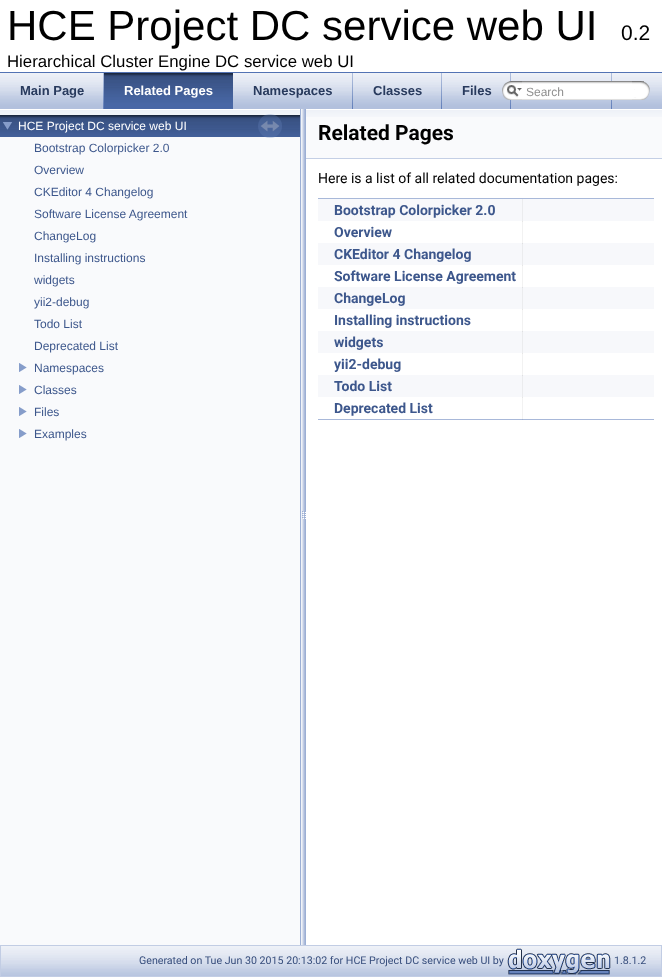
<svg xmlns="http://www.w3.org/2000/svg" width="662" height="977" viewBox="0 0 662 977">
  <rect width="100%" height="100%" fill="rgb(255,255,255)"/>
  <rect x="522" y="221" width="1" height="23" fill="rgb(242,242,242)"/>
  <rect x="522" y="221" width="1" height="1" fill="rgb(230,230,230)"/>
  <rect x="522" y="265" width="1" height="23" fill="rgb(242,242,242)"/>
  <rect x="522" y="265" width="1" height="1" fill="rgb(230,230,230)"/>
  <rect x="522" y="309" width="1" height="23" fill="rgb(242,242,242)"/>
  <rect x="522" y="309" width="1" height="1" fill="rgb(230,230,230)"/>
  <rect x="522" y="353" width="1" height="23" fill="rgb(242,242,242)"/>
  <rect x="522" y="353" width="1" height="1" fill="rgb(230,230,230)"/>
  <rect x="522" y="397" width="1" height="23" fill="rgb(242,242,242)"/>
  <rect x="522" y="397" width="1" height="1" fill="rgb(230,230,230)"/>
  <rect x="0" y="72" width="662" height="1" fill="rgb(83,115,180)"/>
  <text x="7" y="40" font-family="Liberation Sans" font-size="42" fill="rgb(0,0,0)">HCE Project DC service web UI</text>
  <text x="621" y="40" font-family="Liberation Sans" font-size="21" fill="rgb(0,0,0)">0.2</text>
  <text x="7" y="67" font-family="Liberation Sans" font-size="16.8" fill="rgb(0,0,0)">Hierarchical Cluster Engine DC service web UI</text>
  <image x="0" y="73" width="662" height="36" href="pic1.png"/>
  <image x="103" y="73" width="1" height="36" href="pic2.png"/>
  <text x="20" y="95" font-family="Liberation Sans" font-size="13" font-weight="bold" fill="rgb(40,58,93)">Main Page</text>
  <image x="104" y="73" width="129" height="36" href="pic3.png"/>
  <text x="124" y="95" font-family="Liberation Sans" font-size="13" font-weight="bold" fill="rgb(255,255,255)">Related Pages</text>
  <image x="352" y="73" width="1" height="36" href="pic2.png"/>
  <text x="253" y="95" font-family="Liberation Sans" font-size="13" font-weight="bold" fill="rgb(40,58,93)">Namespaces</text>
  <image x="441" y="73" width="1" height="36" href="pic2.png"/>
  <text x="373" y="95" font-family="Liberation Sans" font-size="13" font-weight="bold" fill="rgb(40,58,93)">Classes</text>
  <image x="510" y="73" width="1" height="36" href="pic2.png"/>
  <text x="462" y="95" font-family="Liberation Sans" font-size="13" font-weight="bold" fill="rgb(40,58,93)">Files</text>
  <image x="502" y="81" width="20" height="19" href="pic4.png"/>
  <image x="507" y="85" width="15" height="12" href="pic5.png"/>
  <image x="611" y="73" width="1" height="36" href="pic2.png"/>
  <image x="522" y="81" width="122" height="19" href="pic6.png"/>
  <text x="526" y="96" font-family="Liberation Sans" font-size="12" fill="rgb(144,144,144)">Search</text>
  <image x="632" y="81" width="18" height="19" href="pic7.png"/>
  <rect x="0" y="137" width="300" height="808" fill="rgb(249,250,252)"/>
  <image x="0" y="109" width="300" height="6" href="pic8.png"/>
  <image x="0" y="115" width="300" height="22" href="pic9.png"/>
  <image x="3" y="122" width="9" height="8" href="pic10.png"/>
  <text x="18" y="130" font-family="Liberation Sans" font-size="12" fill="rgb(255,255,255)">HCE Project DC service web UI</text>
  <g font-family="Liberation Sans" font-size="12" fill="rgb(61,87,140)">
    <text>
      <tspan x="34" y="152">Bootstrap Colorpicker 2.0</tspan>
      <tspan x="34" y="174">Overview</tspan>
      <tspan x="34" y="196">CKEditor 4 Changelog</tspan>
      <tspan x="34" y="218">Software License Agreement</tspan>
      <tspan x="34" y="240">ChangeLog</tspan>
      <tspan x="34" y="262">Installing instructions</tspan>
      <tspan x="34" y="284">widgets</tspan>
      <tspan x="34" y="306">yii2-debug</tspan>
      <tspan x="34" y="328">Todo List</tspan>
      <tspan x="34" y="350">Deprecated List</tspan>
    </text>
  </g>
  <image x="19" y="363" width="8" height="9" href="pic11.png"/>
  <text x="34" y="372" font-family="Liberation Sans" font-size="12" fill="rgb(61,87,140)">Namespaces</text>
  <image x="19" y="385" width="8" height="9" href="pic11.png"/>
  <text x="34" y="394" font-family="Liberation Sans" font-size="12" fill="rgb(61,87,140)">Classes</text>
  <image x="19" y="407" width="8" height="9" href="pic11.png"/>
  <text x="34" y="416" font-family="Liberation Sans" font-size="12" fill="rgb(61,87,140)">Files</text>
  <image x="19" y="429" width="8" height="9" href="pic11.png"/>
  <text x="34" y="438" font-family="Liberation Sans" font-size="12" fill="rgb(61,87,140)">Examples</text>
  <image x="258" y="114" width="24" height="24" href="pic12.png"/>
  <image x="300" y="109" width="6" height="836" href="pic13.png"/>
  <rect x="306" y="117" width="356" height="41" fill="rgb(249,250,252)"/>
  <image x="306" y="109" width="356" height="8" href="pic14.png"/>
  <rect x="306" y="158" width="356" height="1" fill="rgb(196,207,229)"/>
  <text x="318" y="140" font-family="Roboto" font-size="21" font-weight="bold" fill="rgb(0,0,0)">Related Pages</text>
  <text x="318" y="183" font-family="Roboto" font-size="14" fill="rgb(0,0,0)">Here is a list of all related documentation pages:</text>
  <rect x="318" y="198" width="336" height="1" fill="rgb(168,184,217)"/>
  <rect x="318" y="419" width="336" height="1" fill="rgb(168,184,217)"/>
  <rect x="522" y="419" width="1" height="1" fill="rgb(160,175,206)"/>
  <rect x="318" y="199" width="336" height="22" fill="rgb(247,248,251)"/>
  <rect x="522" y="199" width="1" height="22" fill="rgb(235,236,238)"/>
  <g font-family="Roboto" font-size="14" font-weight="bold" fill="rgb(61,87,140)">
    <text>
      <tspan x="334" y="215">Bootstrap Colorpicker 2.0</tspan>
      <tspan x="334" y="237">Overview</tspan>
    </text>
  </g>
  <rect x="318" y="243" width="336" height="22" fill="rgb(247,248,251)"/>
  <rect x="522" y="243" width="1" height="22" fill="rgb(235,236,238)"/>
  <rect x="522" y="243" width="1" height="1" fill="rgb(223,224,226)"/>
  <g font-family="Roboto" font-size="14" font-weight="bold" fill="rgb(61,87,140)">
    <text>
      <tspan x="334" y="259">CKEditor 4 Changelog</tspan>
      <tspan x="334" y="281">Software License Agreement</tspan>
    </text>
  </g>
  <rect x="318" y="287" width="336" height="22" fill="rgb(247,248,251)"/>
  <rect x="522" y="287" width="1" height="22" fill="rgb(235,236,238)"/>
  <rect x="522" y="287" width="1" height="1" fill="rgb(223,224,226)"/>
  <g font-family="Roboto" font-size="14" font-weight="bold" fill="rgb(61,87,140)">
    <text>
      <tspan x="334" y="303">ChangeLog</tspan>
      <tspan x="334" y="325">Installing instructions</tspan>
    </text>
  </g>
  <rect x="318" y="331" width="336" height="22" fill="rgb(247,248,251)"/>
  <rect x="522" y="331" width="1" height="22" fill="rgb(235,236,238)"/>
  <rect x="522" y="331" width="1" height="1" fill="rgb(223,224,226)"/>
  <g font-family="Roboto" font-size="14" font-weight="bold" fill="rgb(61,87,140)">
    <text>
      <tspan x="334" y="347">widgets</tspan>
      <tspan x="334" y="369">yii2-debug</tspan>
    </text>
  </g>
  <rect x="318" y="375" width="336" height="22" fill="rgb(247,248,251)"/>
  <rect x="522" y="375" width="1" height="22" fill="rgb(235,236,238)"/>
  <rect x="522" y="375" width="1" height="1" fill="rgb(223,224,226)"/>
  <g font-family="Roboto" font-size="14" font-weight="bold" fill="rgb(61,87,140)">
    <text>
      <tspan x="334" y="391">Todo List</tspan>
      <tspan x="334" y="413">Deprecated List</tspan>
    </text>
  </g>
  <image x="1" y="946" width="660" height="30" href="pic15.png"/>
  <rect x="0.5" y="945.5" width="661" height="31" fill="none" stroke="rgb(194,205,228)"/>
  <text x="139" y="964" font-family="Roboto" font-size="10.65" fill="rgb(54,77,124)">Generated on Tue Jun 30 2015 20:13:02 for HCE Project DC service web UI by</text>
  <image x="507" y="948" width="104" height="27" href="pic16.png"/>
  <text x="614" y="964" font-family="Roboto" font-size="10.65" fill="rgb(54,77,124)">1.8.1.2</text>
</svg>
